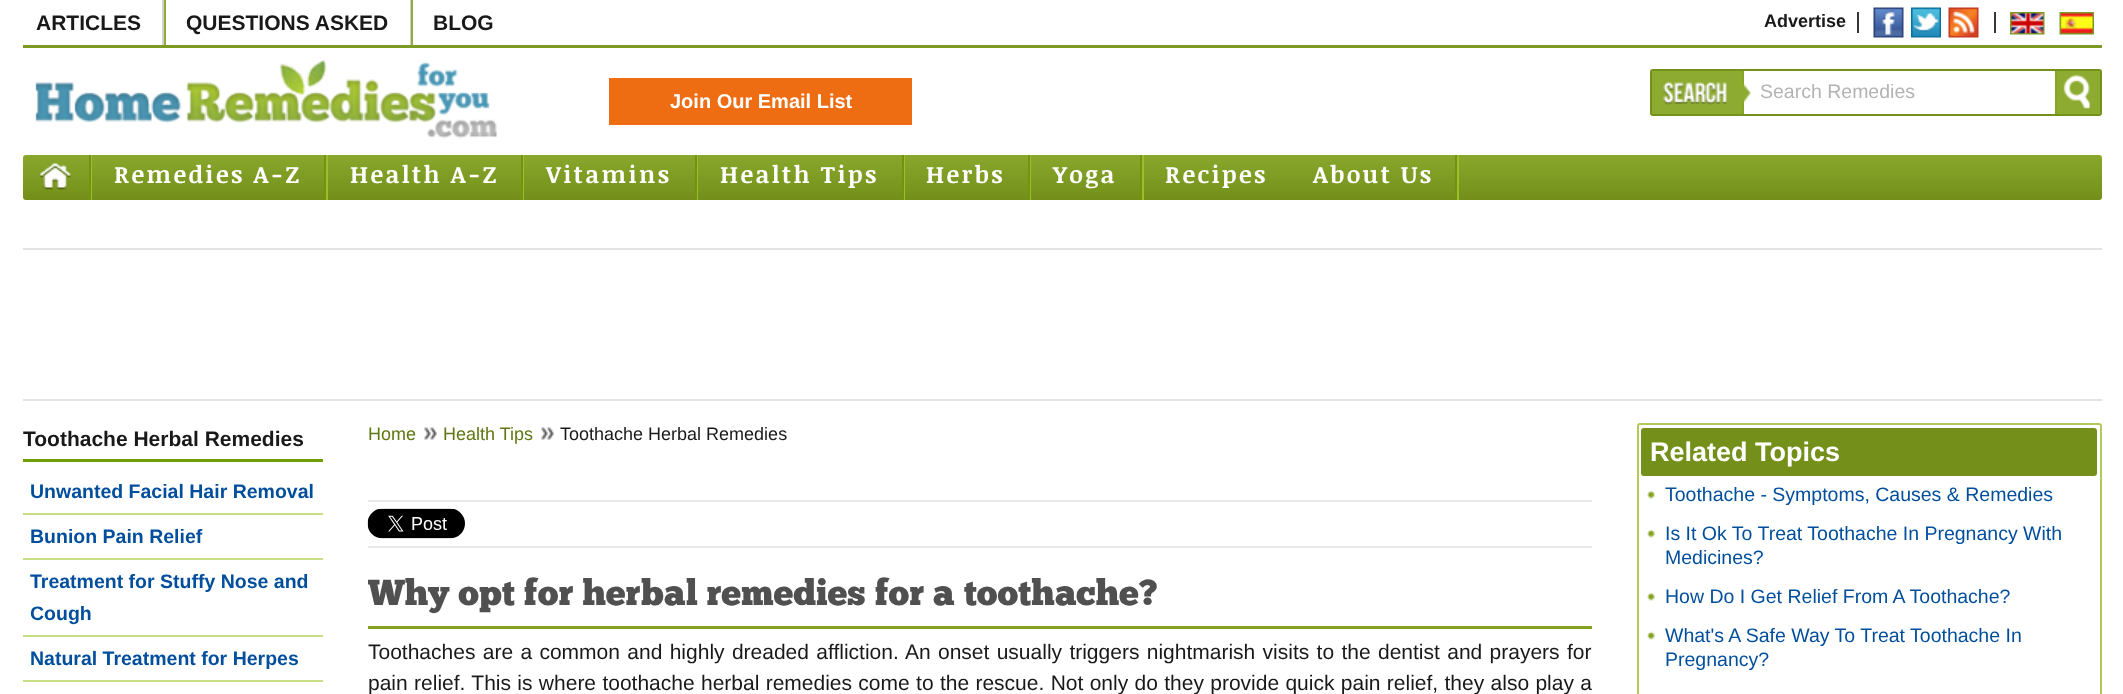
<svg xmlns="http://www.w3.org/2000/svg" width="2123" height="694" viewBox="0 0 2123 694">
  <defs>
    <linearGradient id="g1" gradientUnits="userSpaceOnUse" x1="1062" y1="154" x2="1062" y2="200"><stop offset="0" stop-color="rgb(137,168,44)"/><stop offset="1" stop-color="rgb(115,143,26)"/></linearGradient>
    <clipPath id="clip1"><rect x="368" y="570" width="1224" height="56"/></clipPath>
  </defs>
  <rect width="100%" height="100%" fill="rgb(255,255,255)"/>
  <rect x="23" y="45" width="2079" height="3" fill="rgb(125,154,35)"/>
  <rect x="164" y="0" width="2" height="45" fill="rgb(143,173,54)"/>
  <rect x="162" y="0" width="2" height="45" fill="rgb(209,209,209)"/>
  <text x="36" y="30" font-family="Liberation Sans" font-size="21" font-weight="bold" fill="rgb(25,25,25)">ARTICLES</text>
  <rect x="411" y="0" width="2" height="45" fill="rgb(143,173,54)"/>
  <rect x="410" y="0" width="1" height="45" fill="rgb(209,209,209)"/>
  <g font-family="Liberation Sans" font-size="21" font-weight="bold" fill="rgb(25,25,25)">
    <text x="186" y="30">QUESTIONS ASKED</text>
    <text x="433" y="30">BLOG</text>
  </g>
  <rect x="1857" y="12" width="2" height="21" fill="rgb(58,53,53)"/>
  <text x="1764" y="27" font-family="Liberation Sans" font-size="18" font-weight="bold" fill="rgb(25,25,25)">Advertise</text>
  <rect x="1994" y="12" width="2" height="21" fill="rgb(58,53,53)"/>
  <image x="1873" y="7" width="31" height="31" href="pic1.png"/>
  <image x="1911" y="7" width="30" height="31" href="pic2.png"/>
  <image x="1948" y="7" width="31" height="31" href="pic3.png"/>
  <image x="2010" y="12" width="35" height="23" href="pic4.png"/>
  <image x="2059" y="12" width="35" height="23" href="pic5.png"/>
  <image x="35" y="59" width="462" height="80" href="pic6.png"/>
  <rect x="1651" y="70" width="450" height="45" rx="2" fill="none" stroke="rgb(116,145,27)" stroke-width="2"/>
  <rect x="1652" y="71" width="90" height="43" fill="rgb(141,171,48)"/>
  <image x="1663" y="82" width="64" height="23" href="pic7.png"/>
  <rect x="1742" y="71" width="2" height="43" fill="rgb(133,165,34)"/>
  <image x="1742" y="82" width="9" height="22" href="pic8.png"/>
  <text x="1760" y="98" font-family="Liberation Sans" font-size="19.5" fill="rgb(179,179,179)">Search Remedies</text>
  <rect x="2057" y="71" width="43" height="43" fill="rgb(141,171,48)"/>
  <image x="2063" y="74" width="27" height="35" href="pic9.png"/>
  <rect x="2055" y="71" width="2" height="43" fill="rgb(133,165,34)"/>
  <rect x="610" y="79" width="301" height="45" fill="none" stroke="rgb(238,109,19)" stroke-width="2"/>
  <rect x="611" y="80" width="299" height="43" fill="rgb(238,109,19)"/>
  <text x="670" y="108" font-family="Liberation Sans" font-size="20" font-weight="bold" fill="rgb(255,255,255)">Join Our Email List</text>
  <rect x="23" y="155" width="2079" height="45" rx="3" fill="url(#g1)"/>
  <image x="40" y="163" width="31" height="27" href="pic10.png"/>
  <rect x="91" y="155" width="1" height="45" fill="rgb(155,190,43)"/>
  <rect x="89" y="155" width="2" height="45" fill="rgb(115,146,17)"/>
  <rect x="326" y="155" width="2" height="45" fill="rgb(155,190,43)"/>
  <rect x="324" y="155" width="2" height="45" fill="rgb(115,146,17)"/>
  <text x="114" y="183" font-family="Noticia Text" font-size="24" font-weight="bold" letter-spacing="2.4" fill="rgb(255,255,255)">Remedies A-Z</text>
  <rect x="523" y="155" width="1" height="45" fill="rgb(155,190,43)"/>
  <rect x="521" y="155" width="2" height="45" fill="rgb(115,146,17)"/>
  <text x="350" y="183" font-family="Noticia Text" font-size="24" font-weight="bold" letter-spacing="2.4" fill="rgb(255,255,255)">Health A-Z</text>
  <rect x="697" y="155" width="1" height="45" fill="rgb(155,190,43)"/>
  <rect x="695" y="155" width="2" height="45" fill="rgb(115,146,17)"/>
  <text x="546" y="183" font-family="Noticia Text" font-size="24" font-weight="bold" letter-spacing="2.4" fill="rgb(255,255,255)">Vitamins</text>
  <rect x="904" y="155" width="1" height="45" fill="rgb(155,190,43)"/>
  <rect x="902" y="155" width="2" height="45" fill="rgb(115,146,17)"/>
  <text x="720" y="183" font-family="Noticia Text" font-size="24" font-weight="bold" letter-spacing="2.4" fill="rgb(255,255,255)">Health Tips</text>
  <rect x="1030" y="155" width="1" height="45" fill="rgb(155,190,43)"/>
  <rect x="1028" y="155" width="2" height="45" fill="rgb(115,146,17)"/>
  <text x="926" y="183" font-family="Noticia Text" font-size="24" font-weight="bold" letter-spacing="2.4" fill="rgb(255,255,255)">Herbs</text>
  <rect x="1142" y="155" width="2" height="45" fill="rgb(155,190,43)"/>
  <rect x="1140" y="155" width="2" height="45" fill="rgb(115,146,17)"/>
  <g font-family="Noticia Text" font-size="24" font-weight="bold" letter-spacing="2.4" fill="rgb(255,255,255)">
    <text x="1053" y="183">Yoga</text>
    <text x="1165" y="183">Recipes</text>
  </g>
  <rect x="1457" y="155" width="2" height="45" fill="rgb(155,190,43)"/>
  <rect x="1455" y="155" width="2" height="45" fill="rgb(115,146,17)"/>
  <text x="1313" y="183" font-family="Noticia Text" font-size="24" font-weight="bold" letter-spacing="2.4" fill="rgb(255,255,255)">About Us</text>
  <rect x="23" y="248" width="2079" height="2" fill="rgb(227,227,227)"/>
  <rect x="23" y="399" width="2079" height="2" fill="rgb(227,227,227)"/>
  <rect x="23" y="459" width="300" height="3" fill="rgb(112,158,0)"/>
  <text x="23" y="446" font-family="Liberation Sans" font-size="21" font-weight="bold" fill="rgb(25,25,25)">Toothache Herbal Remedies</text>
  <rect x="23" y="513" width="300" height="2" fill="rgb(199,221,135)"/>
  <text x="30" y="498" font-family="Liberation Sans" font-size="19.5" font-weight="bold" fill="rgb(0,78,156)">Unwanted Facial Hair Removal</text>
  <rect x="23" y="558" width="300" height="2" fill="rgb(199,221,135)"/>
  <text x="30" y="543" font-family="Liberation Sans" font-size="19.5" font-weight="bold" fill="rgb(0,78,156)">Bunion Pain Relief</text>
  <rect x="23" y="635" width="300" height="2" fill="rgb(199,221,135)"/>
  <g font-family="Liberation Sans" font-size="19.5" font-weight="bold" fill="rgb(0,78,156)">
    <text>
      <tspan x="30" y="588">Treatment for Stuffy Nose and</tspan>
      <tspan x="30" y="620">Cough</tspan>
    </text>
  </g>
  <rect x="23" y="680" width="300" height="2" fill="rgb(199,221,135)"/>
  <text x="30" y="665" font-family="Liberation Sans" font-size="19.5" font-weight="bold" fill="rgb(0,78,156)">Natural Treatment for Herpes</text>
  <text x="368" y="440" font-family="Liberation Sans" font-size="18" fill="rgb(94,119,16)">Home</text>
  <image x="424" y="427" width="13" height="13" href="pic11.png"/>
  <text x="443" y="440" font-family="Liberation Sans" font-size="18" fill="rgb(94,119,16)">Health Tips</text>
  <image x="541" y="427" width="13" height="13" href="pic11.png"/>
  <text x="560" y="440" font-family="Liberation Sans" font-size="18" fill="rgb(25,25,25)">Toothache Herbal Remedies</text>
  <rect x="368" y="500" width="1224" height="2" fill="rgb(234,233,233)"/>
  <rect x="368" y="546" width="1224" height="2" fill="rgb(234,233,233)"/>
  <image x="367" y="508" width="98" height="31" href="pic12.png"/>
  <rect x="368" y="626" width="1224" height="3" fill="rgb(131,163,30)"/>
  <g clip-path="url(#clip1)">
    <text x="368" y="605" font-family="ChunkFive" font-size="36" fill="rgb(80,80,80)">Why opt for herbal remedies for a toothache?</text>
  </g>
  <g font-family="Liberation Sans" font-size="21" fill="rgb(25,25,25)">
    <text>
      <tspan x="368" y="659" word-spacing="1.5">Toothaches are a common and highly dreaded affliction. An onset usually triggers nightmarish visits to the dentist and prayers for</tspan>
      <tspan x="368" y="690" word-spacing="0.5">pain relief. This is where toothache herbal remedies come to the rescue. Not only do they provide quick pain relief, they also play a</tspan>
    </text>
  </g>
  <rect x="1638" y="424" width="463" height="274" rx="2" fill="none" stroke="rgb(176,203,91)" stroke-width="2"/>
  <rect x="1641" y="428" width="456" height="48" rx="3" fill="rgb(116,144,27)"/>
  <text x="1650" y="461" font-family="Liberation Sans" font-size="27" font-weight="bold" fill="rgb(255,255,255)">Related Topics</text>
  <image x="1647" y="490" width="8" height="9" href="pic13.png"/>
  <text x="1665" y="501" font-family="Liberation Sans" font-size="19.5" fill="rgb(0,78,156)">Toothache - Symptoms, Causes &amp; Remedies</text>
  <image x="1647" y="529" width="8" height="9" href="pic14.png"/>
  <g font-family="Liberation Sans" font-size="19.5" fill="rgb(0,78,156)">
    <text>
      <tspan x="1665" y="540">Is It Ok To Treat Toothache In Pregnancy With</tspan>
      <tspan x="1665" y="564">Medicines?</tspan>
    </text>
  </g>
  <image x="1647" y="592" width="8" height="9" href="pic13.png"/>
  <text x="1665" y="603" font-family="Liberation Sans" font-size="19.5" fill="rgb(0,78,156)">How Do I Get Relief From A Toothache?</text>
  <image x="1647" y="631" width="8" height="9" href="pic14.png"/>
  <g font-family="Liberation Sans" font-size="19.5" fill="rgb(0,78,156)">
    <text>
      <tspan x="1665" y="642">What's A Safe Way To Treat Toothache In</tspan>
      <tspan x="1665" y="666">Pregnancy?</tspan>
    </text>
  </g>
</svg>
